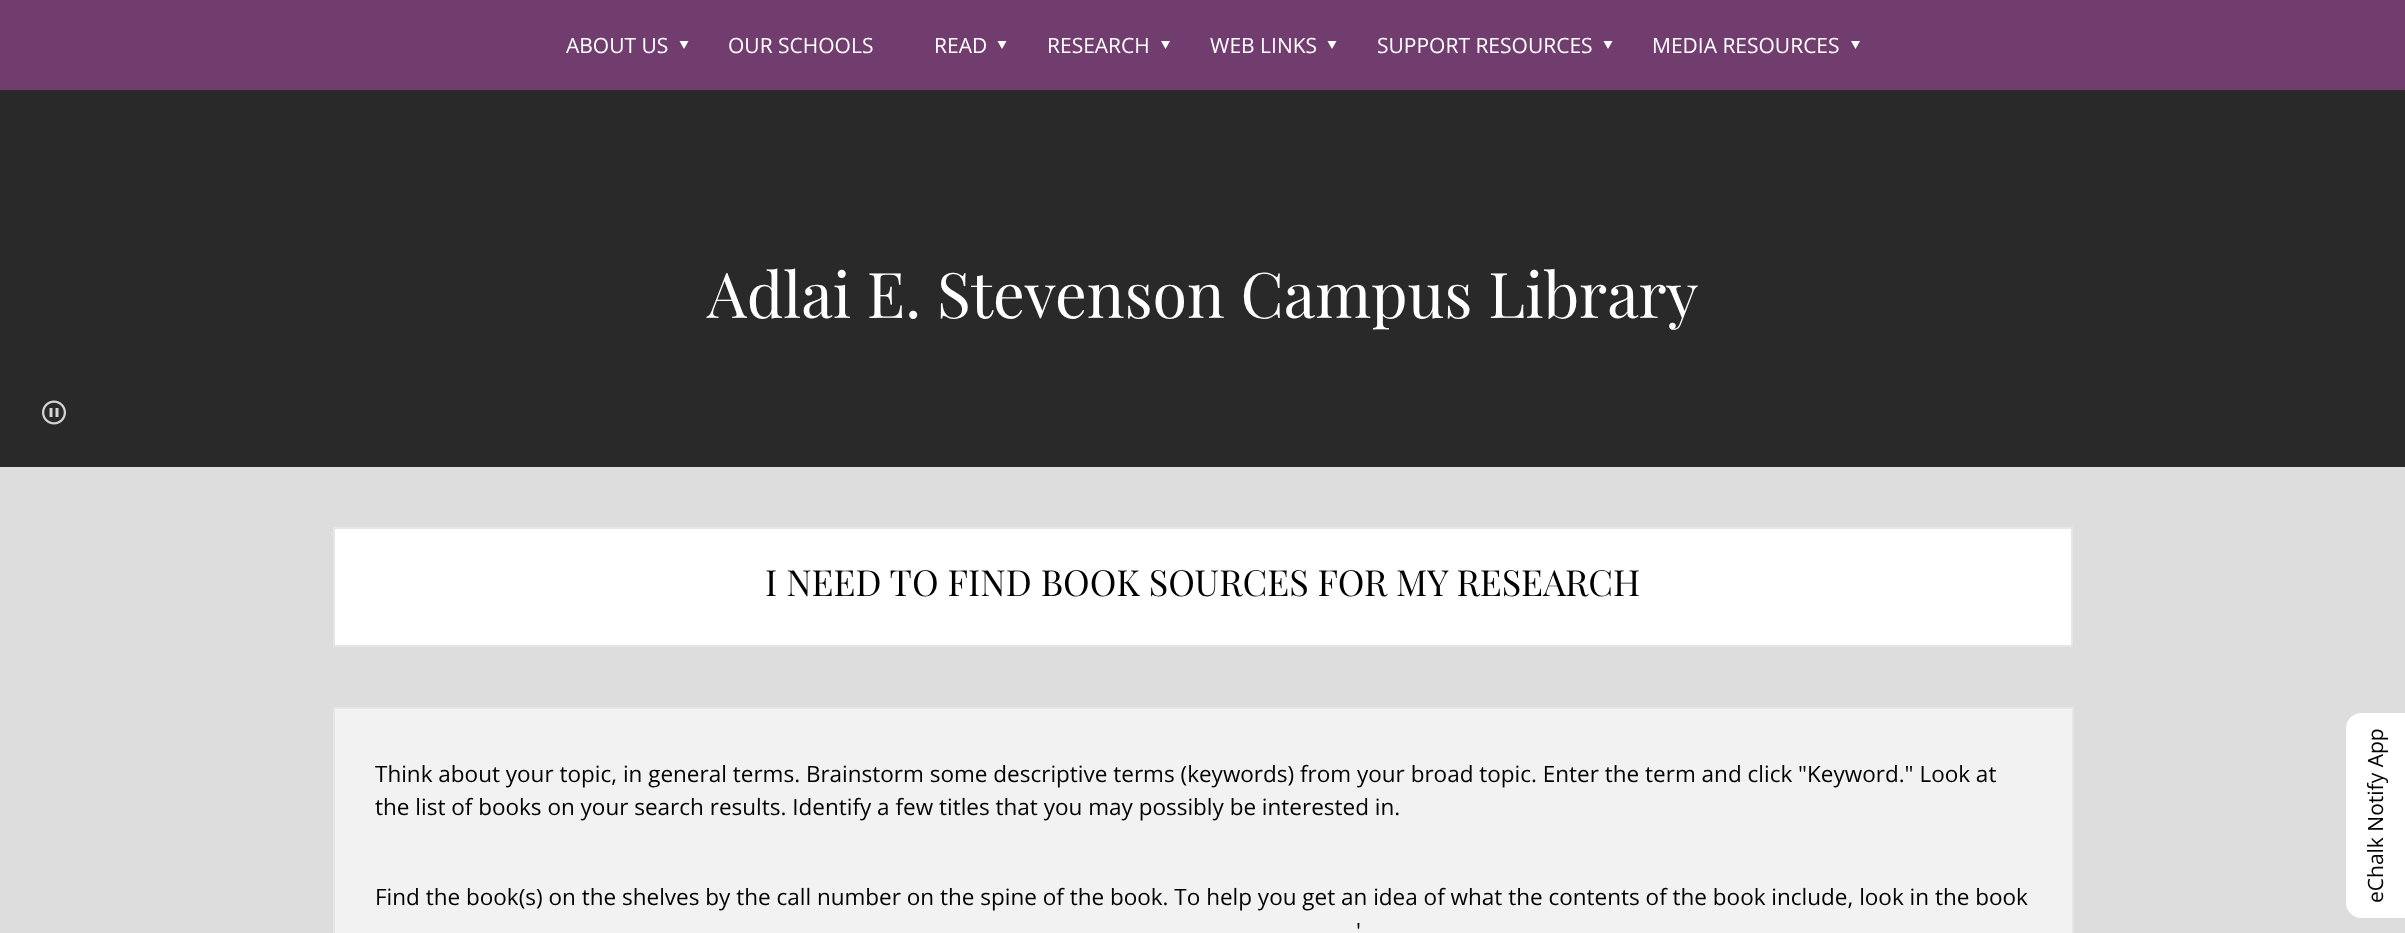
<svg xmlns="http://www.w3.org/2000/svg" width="2405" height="933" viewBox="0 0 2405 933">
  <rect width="100%" height="100%" fill="rgb(41,41,41)"/>
  <rect x="0" y="0" width="2405" height="90" fill="rgb(113,61,110)"/>
  <text x="566" y="53" font-family="Open Sans" font-size="21" fill="rgb(255,255,255)">ABOUT US</text>
  <path d="M688.5 41L684 49L679.5 41Z" fill="rgb(255,255,255)"/>
  <g font-family="Open Sans" font-size="21" fill="rgb(255,255,255)">
    <text x="728" y="53">OUR SCHOOLS</text>
    <text x="934" y="53">READ</text>
  </g>
  <path d="M1006.5 41L1002 49L997.5 41Z" fill="rgb(255,255,255)"/>
  <text x="1047" y="53" font-family="Open Sans" font-size="21" fill="rgb(255,255,255)">RESEARCH</text>
  <path d="M1170 41L1165.5 49L1161 41Z" fill="rgb(255,255,255)"/>
  <text x="1210" y="53" font-family="Open Sans" font-size="21" fill="rgb(255,255,255)">WEB LINKS</text>
  <path d="M1336.5 41L1332 49L1327.5 41Z" fill="rgb(255,255,255)"/>
  <text x="1377" y="53" font-family="Open Sans" font-size="21" fill="rgb(255,255,255)">SUPPORT RESOURCES</text>
  <path d="M1612.5 41L1608 49L1603.5 41Z" fill="rgb(255,255,255)"/>
  <text x="1652" y="53" font-family="Open Sans" font-size="21" fill="rgb(255,255,255)">MEDIA RESOURCES</text>
  <path d="M1860 41L1855.5 49L1851 41Z" fill="rgb(255,255,255)"/>
  <text x="707" y="318" font-family="Playfair Display" font-size="63" fill="rgb(255,255,255)">Adlai E. Stevenson Campus Library</text>
  <image x="42" y="400" width="24" height="25" href="pic1.png"/>
  <rect x="0" y="467" width="2405" height="466" fill="rgb(221,221,221)"/>
  <rect x="334" y="528" width="1738" height="118" fill="rgb(255,255,255)" stroke="rgb(230,230,230)" stroke-width="2"/>
  <text x="765" y="596" font-family="Playfair Display" font-size="36" fill="rgb(0,0,0)">I NEED TO FIND BOOK SOURCES FOR MY RESEARCH</text>
  <rect x="335" y="709" width="1737" height="224" fill="rgb(242,242,242)"/>
  <rect x="335" y="707" width="1737" height="2" fill="rgb(230,230,230)"/>
  <rect x="333" y="707" width="2" height="226" fill="rgb(230,230,230)"/>
  <g font-family="Open Sans" font-size="22.5" fill="rgb(0,0,0)">
    <text>
      <tspan x="375" y="782">Think about your topic, in general terms. Brainstorm some descriptive terms (keywords) from your broad topic. Enter the term and click "Keyword." Look at</tspan>
      <tspan x="375" y="815">the list of books on your search results. Identify a few titles that you may possibly be interested in.</tspan>
    </text>
    <text x="375" y="905">Find the book(s) on the shelves by the call number on the spine of the book. To help you get an idea of what the contents of the book include, look in the book</text>
    <text x="1356" y="939">'</text>
  </g>
  <rect x="2072" y="707" width="2" height="226" fill="rgb(230,230,230)"/>
  <path d="M2346 903V728C2346 720 2353 713 2361 713H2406V918H2361C2353 918 2346 911 2346 903Z" fill="rgb(255,255,255)"/>
  <text x="2383" y="903" transform="rotate(-90 2383 903)" font-family="Open Sans" font-size="21" fill="rgb(0,0,0)">eChalk Notify App</text>
</svg>
